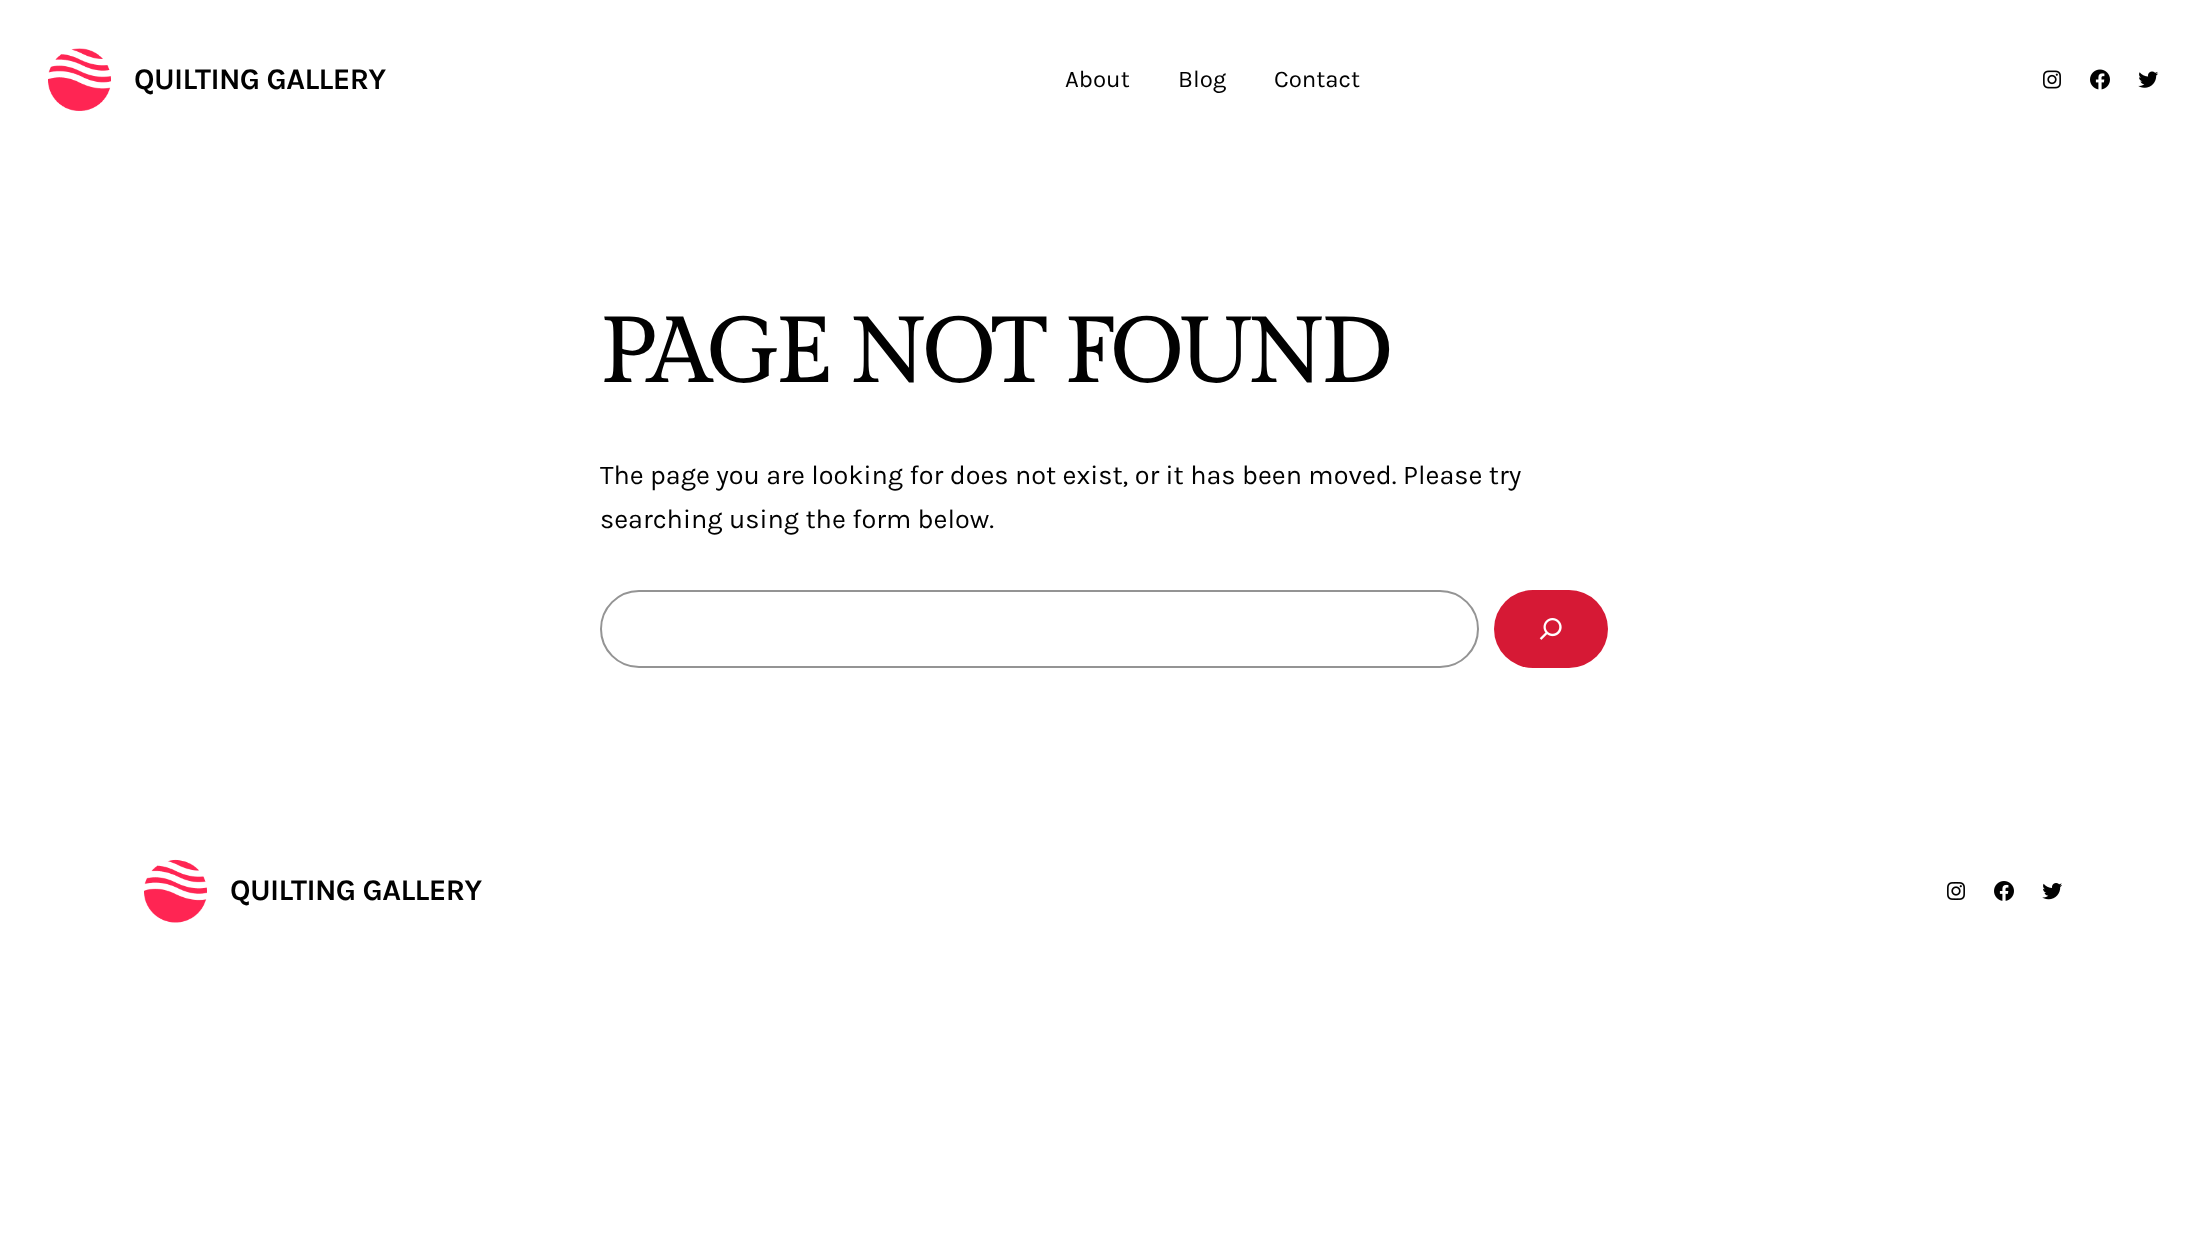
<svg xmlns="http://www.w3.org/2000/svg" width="2208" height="1258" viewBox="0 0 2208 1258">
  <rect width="100%" height="100%" fill="rgb(255,255,255)"/>
  <image x="48" y="48" width="63" height="63" href="pic1.png"/>
  <text x="134" y="89" font-family="Karla" font-size="30" font-weight="bold" letter-spacing="-0.6" fill="rgb(1,1,1)">QUILTING GALLERY</text>
  <g font-family="Karla" font-size="24" fill="rgb(1,1,1)">
    <text x="1065" y="87">About</text>
    <text x="1178" y="87">Blog</text>
    <text x="1274" y="87">Contact</text>
  </g>
  <image x="2043" y="70" width="18" height="19" href="pic2.png"/>
  <image x="2090" y="69" width="20" height="21" href="pic3.png"/>
  <image x="2138" y="71" width="21" height="17" href="pic4.png"/>
  <text x="600" y="382" font-family="Gilda Display" font-size="90" font-weight="bold" letter-spacing="-1.75" fill="rgb(1,1,1)">PAGE NOT FOUND</text>
  <g font-family="Karla" font-size="27" fill="rgb(1,1,1)">
    <text>
      <tspan x="600" y="484">The page you are looking for does not exist, or it has been moved. Please try</tspan>
      <tspan x="600" y="528">searching using the form below.</tspan>
    </text>
  </g>
  <rect x="601" y="591" width="877" height="76" rx="38" fill="none" stroke="rgb(148,148,148)" stroke-width="2"/>
  <rect x="1494" y="590" width="114" height="78" rx="39" fill="rgb(214,25,53)"/>
  <image x="1539" y="618" width="23" height="22" href="pic5.png"/>
  <image x="144" y="859" width="63" height="64" href="pic6.png"/>
  <text x="230" y="900" font-family="Karla" font-size="30" font-weight="bold" letter-spacing="-0.6" fill="rgb(1,1,1)">QUILTING GALLERY</text>
  <image x="1947" y="882" width="18" height="18" href="pic7.png"/>
  <image x="1994" y="881" width="20" height="20" href="pic8.png"/>
  <image x="2042" y="883" width="20" height="17" href="pic9.png"/>
</svg>
